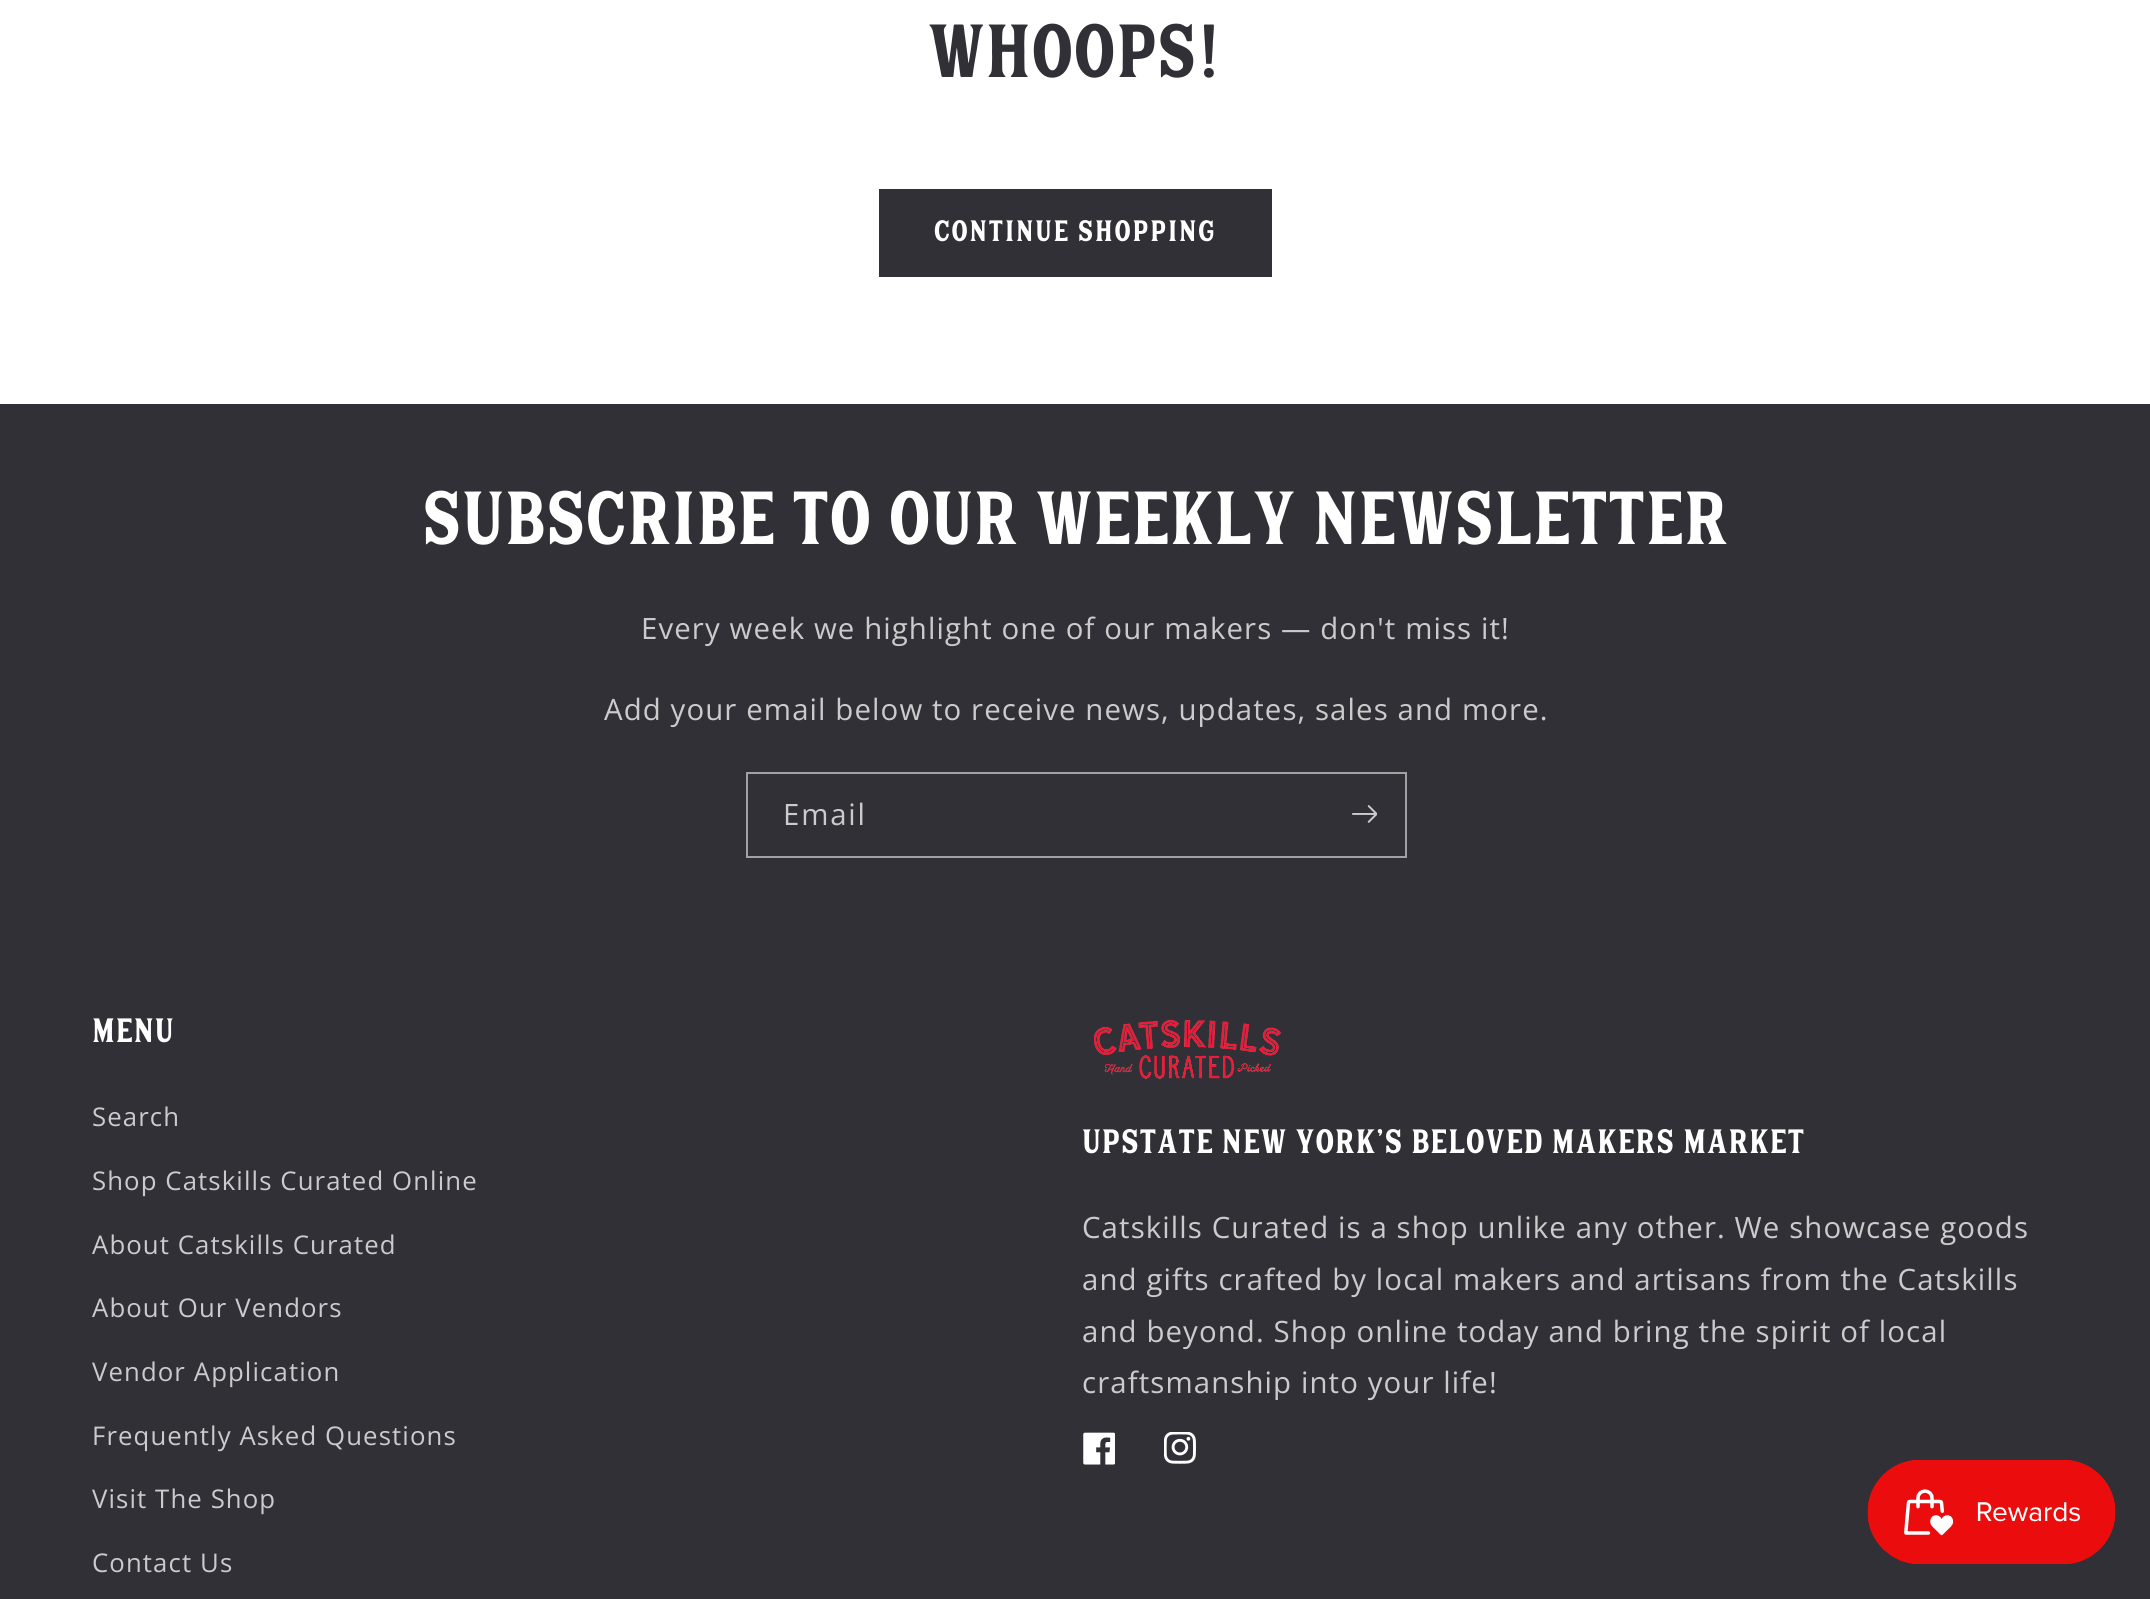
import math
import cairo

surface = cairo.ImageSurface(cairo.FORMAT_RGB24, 2150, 1599)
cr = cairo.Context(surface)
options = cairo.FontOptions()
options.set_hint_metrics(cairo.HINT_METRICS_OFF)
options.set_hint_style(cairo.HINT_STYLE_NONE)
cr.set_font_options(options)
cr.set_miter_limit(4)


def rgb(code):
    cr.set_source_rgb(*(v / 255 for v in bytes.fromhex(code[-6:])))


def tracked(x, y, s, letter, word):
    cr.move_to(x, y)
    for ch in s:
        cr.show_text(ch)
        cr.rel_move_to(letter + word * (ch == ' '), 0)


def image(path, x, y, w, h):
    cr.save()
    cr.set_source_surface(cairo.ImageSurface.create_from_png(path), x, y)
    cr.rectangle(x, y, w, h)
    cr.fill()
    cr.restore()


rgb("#ffffff")
cr.paint()
rgb("#303036")
cr.rectangle(879, 189, 393, 88)
cr.fill()
cr.rectangle(0, 404, 2150, 1195)
cr.fill()
cr.rectangle(747, 773, 659, 84)
rgb("#a2a2a5")
cr.stroke()
image("img/1.png", 1352, 805, 25, 18)
image("img/2.png", 1094, 1019, 187, 60)
image("img/3.png", 1083, 1432, 32, 33)
image("img/4.png", 1164, 1432, 32, 32)
image("img/5.png", 1867, 1459, 249, 106)
cr.select_font_face("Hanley")
cr.set_font_size(70)
rgb("#303036")
tracked(928, 77, "WHOOPS!", 1.05, 0)
cr.set_font_size(27.5)
rgb("#ffffff")
tracked(934, 241, "Continue shopping", 1.8, 0)
cr.set_font_size(70)
tracked(422, 544, "Subscribe to Our Weekly Newsletter", 1.05, 0)
cr.select_font_face("Open Sans")
cr.set_font_size(29.4)
rgb("#cbcbcd")
tracked(641, 639, "Every week we highlight one of our makers — don't miss it!", 1.1, 0)
tracked(604, 720, "Add your email below to receive news, updates, sales and more.", 1.1, 0)
tracked(783, 825, "Email", 1.8, 0)
cr.select_font_face("Hanley")
cr.set_font_size(31.5)
rgb("#ffffff")
tracked(92, 1042, "Menu", 1.05, 0)
cr.select_font_face("Open Sans")
cr.set_font_size(25.75)
rgb("#cbcbcd")
for x, y, s in [
    (92, 1126, "Search"),
    (92, 1190, "Shop Catskills Curated Online"),
    (92, 1254, "About Catskills Curated"),
    (92, 1317, "About Our Vendors"),
    (92, 1381, "Vendor Application"),
    (92, 1445, "Frequently Asked Questions"),
    (92, 1508, "Visit The Shop"),
    (92, 1572, "Contact Us"),
]:
    tracked(x, y, s, 1.1, 0)
cr.select_font_face("Hanley")
cr.set_font_size(31.5)
rgb("#ffffff")
tracked(1082, 1153, "Upstate New York’s Beloved Makers Market", 1.05, 0)
cr.select_font_face("Open Sans")
cr.set_font_size(29.4)
rgb("#cbcbcd")
for x, y, s in [
    (1082, 1238, "Catskills Curated is a shop unlike any other. We showcase goods"),
    (1082, 1290, "and gifts crafted by local makers and artisans from the Catskills"),
    (1082, 1342, "and beyond. Shop online today and bring the spirit of local"),
    (1082, 1393, "craftsmanship into your life!"),
]:
    tracked(x, y, s, 1.1, 0)
surface.write_to_png("page.png")
